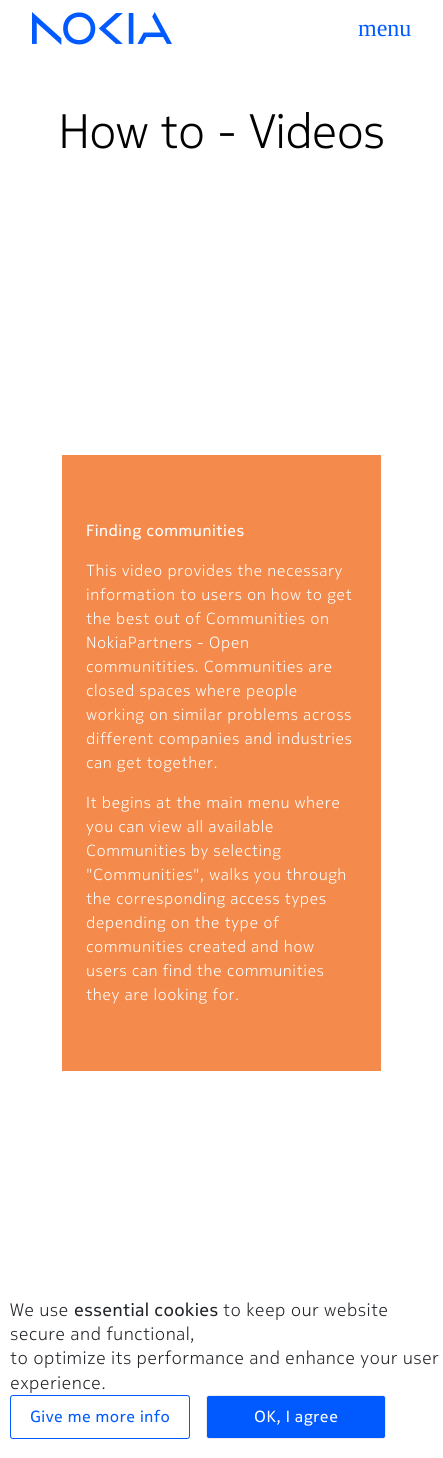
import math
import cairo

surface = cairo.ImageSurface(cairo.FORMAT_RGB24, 443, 1458)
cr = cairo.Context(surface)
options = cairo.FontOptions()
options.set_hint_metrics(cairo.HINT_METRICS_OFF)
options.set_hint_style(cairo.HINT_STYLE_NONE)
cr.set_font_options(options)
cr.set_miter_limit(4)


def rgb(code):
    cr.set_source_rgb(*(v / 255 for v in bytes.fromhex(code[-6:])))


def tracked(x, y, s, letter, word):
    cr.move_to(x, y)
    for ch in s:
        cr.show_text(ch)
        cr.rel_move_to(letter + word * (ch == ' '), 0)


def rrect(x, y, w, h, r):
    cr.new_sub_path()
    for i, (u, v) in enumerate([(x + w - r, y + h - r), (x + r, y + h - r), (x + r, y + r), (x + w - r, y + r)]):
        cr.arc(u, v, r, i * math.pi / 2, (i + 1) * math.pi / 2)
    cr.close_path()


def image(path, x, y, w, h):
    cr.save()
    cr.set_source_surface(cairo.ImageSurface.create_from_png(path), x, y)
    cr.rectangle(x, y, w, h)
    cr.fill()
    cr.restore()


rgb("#ffffff")
cr.paint()
image("img/1.png", 32, 12, 140, 33)
rgb("#f48b4c")
cr.rectangle(62, 455, 319, 616)
cr.fill()
rrect(10.5, 1395.5, 179, 43, 2.5)
rgb("#005aff")
cr.set_line_width(1)
cr.stroke()
rrect(206.5, 1395.5, 179, 43, 2.5)
cr.fill_preserve()
rgb("#ebebeb")
cr.stroke()
cr.select_font_face("Liberation Serif")
cr.set_font_size(24)
rgb("#005aff")
cr.move_to(358, 36)
cr.show_text("menu")
cr.select_font_face("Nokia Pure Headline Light")
cr.set_font_size(48)
rgb("#000000")
tracked(59, 148, "How to - Videos", 0.5, 0)
cr.select_font_face("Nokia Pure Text")
cr.set_font_size(16)
rgb("#ffffff")
tracked(86, 536, "Finding communities", 0.5, 0)
cr.select_font_face("Nokia Pure Text Light")
for x, y, s in [
    (86, 576, "This video provides the necessary"),
    (86, 600, "information to users on how to get"),
    (86, 624, "the best out of Communities on"),
    (86, 648, "NokiaPartners - Open"),
    (86, 672, "communitities. Communities are"),
    (86, 696, "closed spaces where people"),
    (86, 720, "working on similar problems across"),
    (86, 744, "different companies and industries"),
    (86, 768, "can get together."),
    (86, 808, "It begins at the main menu where"),
    (86, 832, "you can view all available"),
    (86, 856, "Communities by selecting"),
    (86, 880, "\"Communities\", walks you through"),
    (86, 904, "the corresponding access types"),
    (86, 928, "depending on the type of"),
    (86, 952, "communities created and how"),
    (86, 976, "users can find the communities"),
    (86, 1000, "they are looking for."),
]:
    tracked(x, y, s, 0.5, 0)
cr.set_font_size(18)
rgb("#212529")
tracked(10, 1316, "We use", 0.35, 0)
cr.select_font_face("Nokia Pure Text")
tracked(74, 1316, "essential cookies", 0.35, 0)
cr.select_font_face("Nokia Pure Text Light")
for x, y, s in [
    (223, 1316, "to keep our website"),
    (10, 1340, "secure and functional,"),
    (10, 1364, "to optimize its performance and enhance your user"),
    (10, 1389, "experience."),
]:
    tracked(x, y, s, 0.35, 0)
cr.select_font_face("Nokia Pure Text")
cr.set_font_size(16)
rgb("#005aff")
tracked(30, 1422, "Give me more info", 0.5, 0)
rgb("#ffffff")
tracked(254, 1422, "OK, I agree", 0.5, 0)
surface.write_to_png("page.png")
